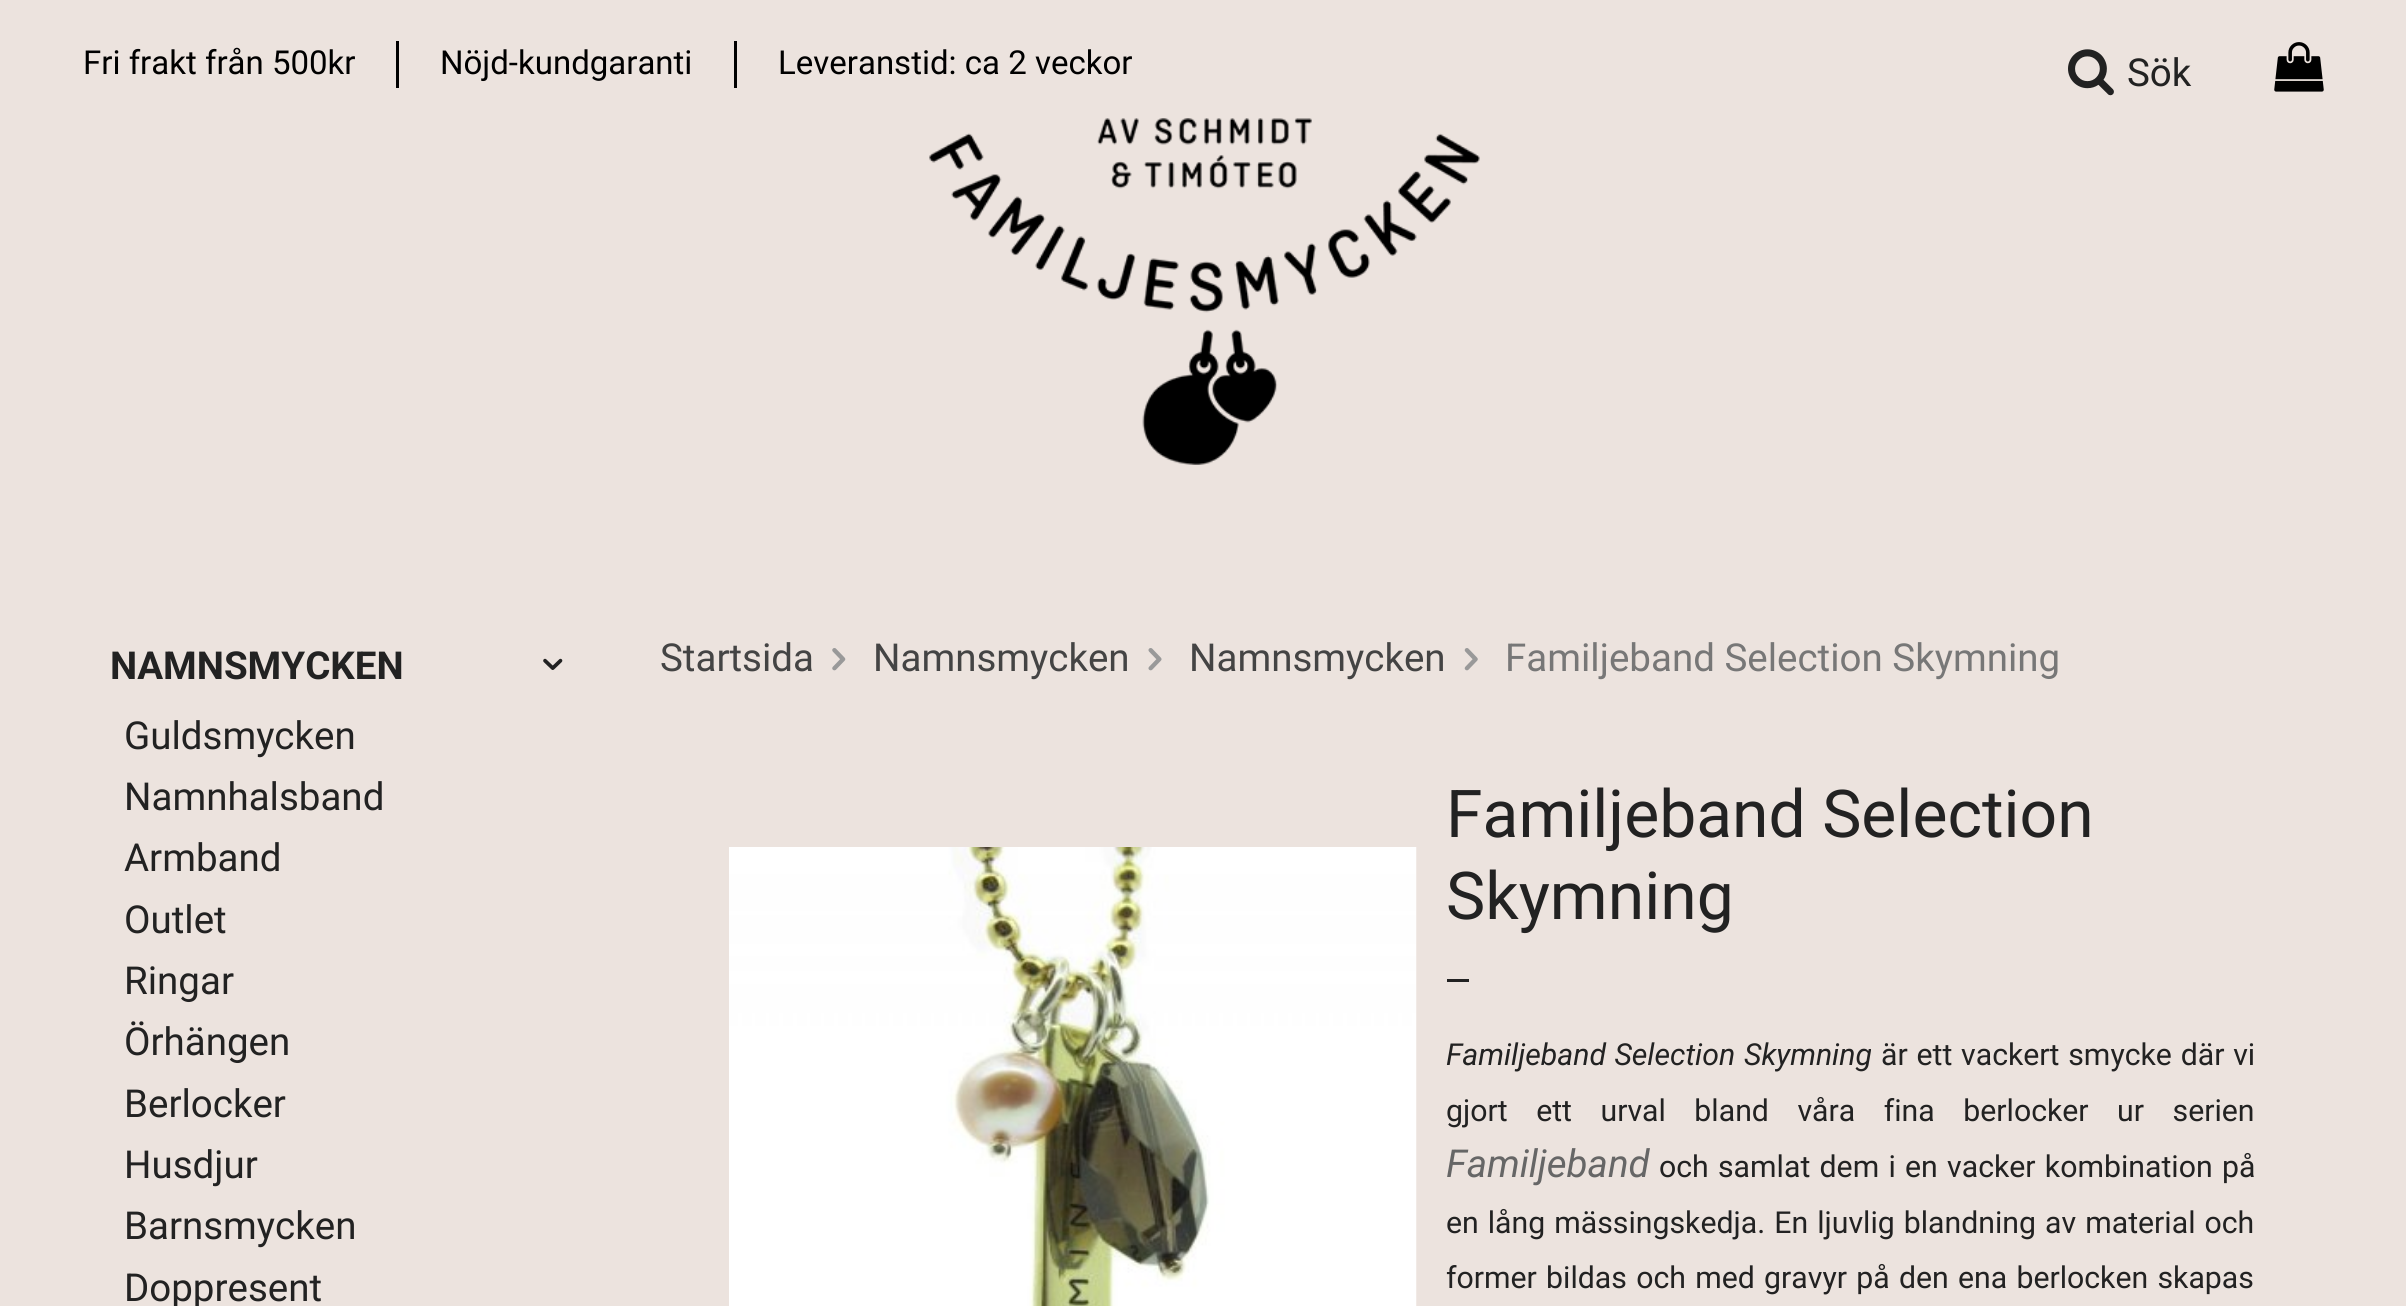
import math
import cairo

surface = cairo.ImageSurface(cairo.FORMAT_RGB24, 2406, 1306)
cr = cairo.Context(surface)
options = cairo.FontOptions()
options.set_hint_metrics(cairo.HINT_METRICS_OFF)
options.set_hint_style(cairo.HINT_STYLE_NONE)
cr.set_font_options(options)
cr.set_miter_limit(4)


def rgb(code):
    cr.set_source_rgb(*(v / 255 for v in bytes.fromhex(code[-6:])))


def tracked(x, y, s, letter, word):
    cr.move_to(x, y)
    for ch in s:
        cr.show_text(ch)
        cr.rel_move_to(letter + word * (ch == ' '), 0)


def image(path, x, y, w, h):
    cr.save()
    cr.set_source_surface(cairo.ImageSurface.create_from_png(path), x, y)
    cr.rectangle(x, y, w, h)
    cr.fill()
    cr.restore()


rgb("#ece3de")
cr.paint()
rgb("#000000")
cr.rectangle(396, 41, 3, 47)
cr.fill()
cr.rectangle(734, 41, 3, 47)
cr.fill()
image("img/1.png", 2068, 49, 46, 47)
image("img/2.png", 2274, 42, 50, 50)
image("img/3.png", 929, 118, 551, 347)
image("img/4.png", 543, 658, 20, 12)
image("img/5.png", 832, 648, 14, 23)
image("img/6.png", 1148, 648, 14, 23)
image("img/7.png", 1464, 648, 14, 23)
image("img/8.png", 729, 847, 688, 459)
rgb("#222222")
cr.rectangle(1447, 979, 22, 3)
cr.fill()
cr.select_font_face("Roboto")
cr.set_font_size(33)
rgb("#000000")
for x, y, s in [
    (83, 74, "Fri frakt från 500kr"),
    (440, 74, "Nöjd-kundgaranti"),
    (778, 74, "Leveranstid: ca 2 veckor"),
]:
    cr.move_to(x, y)
    cr.show_text(s)
cr.set_font_size(38.5)
rgb("#222222")
cr.move_to(2127, 86)
cr.show_text("Sök")
cr.select_font_face("Roboto", cairo.FONT_SLANT_NORMAL, cairo.FONT_WEIGHT_BOLD)
cr.move_to(110, 679)
cr.show_text("NAMNSMYCKEN")
cr.select_font_face("Roboto")
for x, y, s in [
    (124, 749, "Guldsmycken"),
    (124, 810, "Namnhalsband"),
    (124, 871, "Armband"),
    (124, 933, "Outlet"),
    (124, 994, "Ringar"),
    (124, 1055, "Örhängen"),
    (124, 1117, "Berlocker"),
    (124, 1178, "Husdjur"),
    (124, 1239, "Barnsmycken"),
    (124, 1301, "Doppresent"),
]:
    cr.move_to(x, y)
    cr.show_text(s)
rgb("#444444")
for x, y, s in [
    (660, 671, "Startsida"),
    (873, 671, "Namnsmycken"),
    (1189, 671, "Namnsmycken"),
]:
    cr.move_to(x, y)
    cr.show_text(s)
rgb("#777777")
cr.move_to(1505, 671)
cr.show_text("Familjeband Selection Skymning")
cr.set_font_size(66)
rgb("#222222")
cr.move_to(1446, 837)
cr.show_text("Familjeband Selection")
cr.move_to(1446, 919)
cr.show_text("Skymning")
cr.select_font_face("Roboto", cairo.FONT_SLANT_ITALIC)
cr.set_font_size(30.25)
tracked(1446, 1065, "Familjeband Selection", 0, 1)
cr.move_to(1744, 1065)
cr.show_text("Skymning")
cr.select_font_face("Roboto")
tracked(1881, 1065, "är ett vackert smycke där vi", 0, 1.25)
tracked(1446, 1121, "gjort ett urval bland våra fina berlocker ur serien", 0, 21)
cr.select_font_face("Roboto", cairo.FONT_SLANT_ITALIC)
cr.set_font_size(38.5)
rgb("#666666")
cr.move_to(1446, 1177)
cr.show_text("Familjeband")
cr.select_font_face("Roboto")
cr.set_font_size(30.25)
rgb("#222222")
tracked(1659, 1177, "och samlat dem i en vacker kombination på", 0, 1.75)
tracked(1446, 1233, "en lång mässingskedja. En ljuvlig blandning av material och", 0, 1.5)
tracked(1446, 1288, "former bildas och med gravyr på den ena berlocken skapas", 0, 1.75)
surface.write_to_png("page.png")
